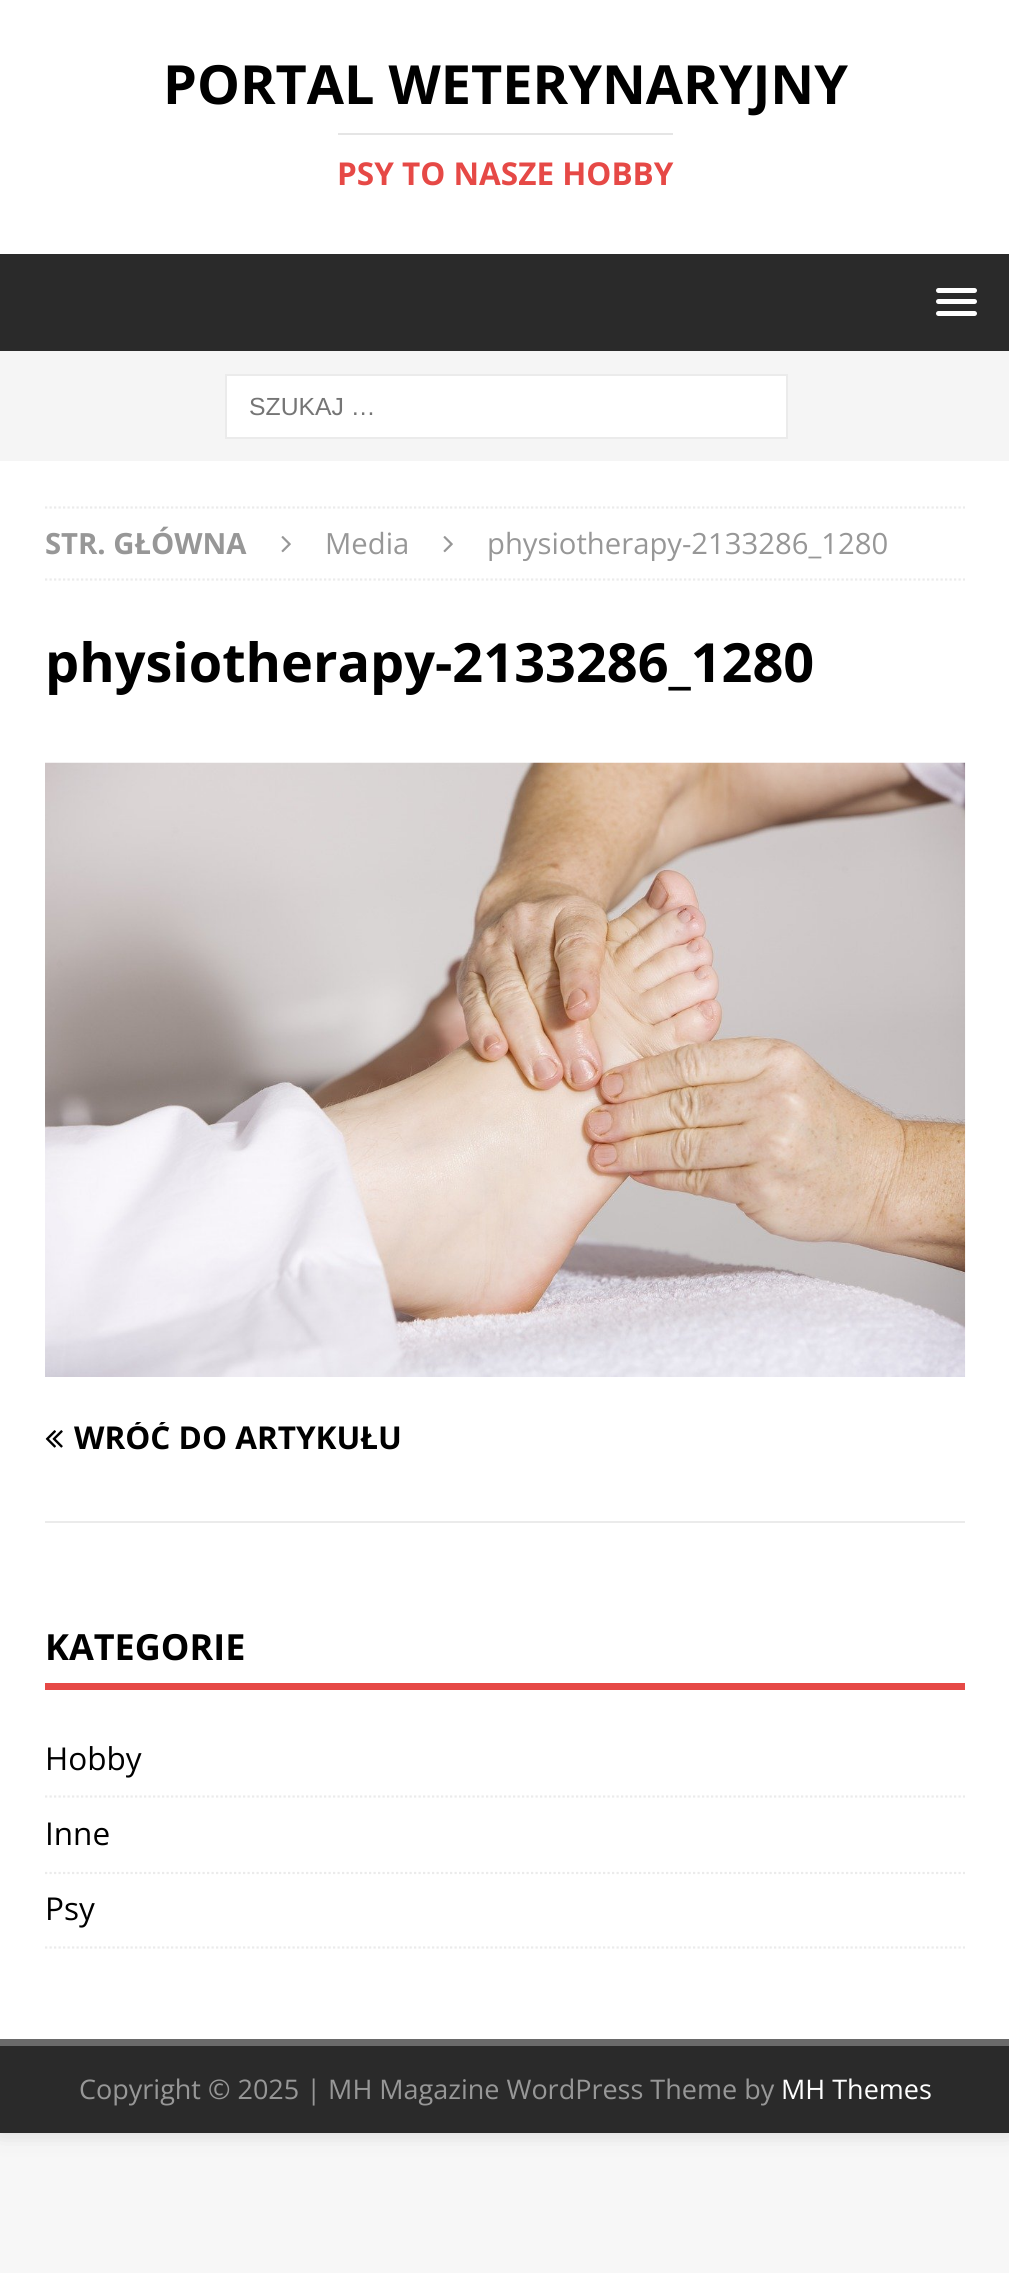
import math
import cairo

surface = cairo.ImageSurface(cairo.FORMAT_RGB24, 1009, 2273)
cr = cairo.Context(surface)
options = cairo.FontOptions()
options.set_hint_metrics(cairo.HINT_METRICS_OFF)
options.set_hint_style(cairo.HINT_STYLE_NONE)
cr.set_font_options(options)
cr.set_miter_limit(4)


def rgb(code):
    cr.set_source_rgb(*(v / 255 for v in bytes.fromhex(code[-6:])))


def rrect(x, y, w, h, r):
    cr.new_sub_path()
    for i, (u, v) in enumerate([(x + w - r, y + h - r), (x + r, y + h - r), (x + r, y + r), (x + w - r, y + r)]):
        cr.arc(u, v, r, i * math.pi / 2, (i + 1) * math.pi / 2)
    cr.close_path()


def soft_shadow(x, y, w, h, r, blur, alpha):
    cr.push_group_with_content(cairo.CONTENT_ALPHA)
    cr.set_operator(cairo.OPERATOR_SOURCE)
    for i in range(15, -16, -2):
        e = blur * i / 6
        if min(w, h) + 2 * e > 0:
            cr.set_source_rgba(0, 0, 0, alpha * math.erfc((i - 1) / 8.5) / 2)
            rrect(x - e, y - e, w + 2 * e, h + 2 * e, max(0, min(r + e + blur * .6, min(w, h) / 2 + e)))
            cr.fill()
    cr.mask(cr.pop_group())


def image(path, x, y, w, h):
    cr.save()
    cr.set_source_surface(cairo.ImageSurface.create_from_png(path), x, y)
    cr.rectangle(x, y, w, h)
    cr.fill()
    cr.restore()


rgb("#f7f7f7")
cr.paint()
rgb("#323232")
soft_shadow(0, 0, 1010, 2133, 0, 11, 0.17)
for x, y, w, h, color in [
    (0, 0, 1009, 254, "#ffffff"),
    (338, 133, 335, 2, "#e5e5e5"),
    (0, 254, 1009, 97, "#2a2a2a"),
]:
    rgb(color)
    cr.rectangle(x, y, w, h)
    cr.fill()
rgb("#ffffff")
rrect(936, 288, 41, 5, 2.5)
cr.fill()
rrect(936, 299, 41, 5, 2.5)
cr.fill()
rrect(936, 311, 41, 5, 2.5)
cr.fill()
rgb("#f5f5f5")
cr.rectangle(0, 351, 1009, 110)
cr.fill()
rgb("#ffffff")
cr.rectangle(226, 375, 561, 63)
cr.fill_preserve()
rgb("#ebebeb")
cr.stroke()
rgb("#ffffff")
cr.rectangle(0, 461, 1009, 1578)
cr.fill()
cr.new_path()
cr.move_to(45, 507.5)
cr.line_to(965, 507.5)
rgb("#ebebeb")
cr.set_line_width(2.2)
cr.set_dash([2.25, 2.25])
cr.stroke()
cr.new_path()
cr.move_to(45, 579.5)
cr.line_to(965, 579.5)
cr.stroke()
image("img/1.png", 281, 536, 10, 17)
image("img/1.png", 443, 536, 10, 17)
image("img/2.png", 45, 762, 921, 615)
cr.rectangle(45, 1521, 920, 2)
cr.fill()
image("img/3.png", 45, 1430, 18, 18)
rgb("#e64946")
cr.rectangle(45, 1683, 920, 7)
cr.fill()
cr.new_path()
cr.move_to(45, 1796.5)
cr.line_to(965, 1796.5)
rgb("#ebebeb")
cr.stroke()
cr.new_path()
cr.move_to(45, 1873)
cr.line_to(965, 1873)
cr.stroke()
cr.new_path()
cr.move_to(45, 1947.5)
cr.line_to(965, 1947.5)
cr.stroke()
rgb("#2a2a2a")
cr.rectangle(0, 2046, 1009, 87)
cr.fill()
rgb("#6a6a6a")
cr.rectangle(0, 2039, 1009, 7)
cr.fill()
cr.select_font_face("Open Sans", cairo.FONT_SLANT_NORMAL, cairo.FONT_WEIGHT_BOLD)
cr.set_font_size(54)
rgb("#000000")
cr.move_to(163, 104)
cr.show_text("PORTAL WETERYNARYJNY")
cr.set_font_size(31.5)
rgb("#e64946")
cr.move_to(337, 185)
cr.show_text("PSY TO NASZE HOBBY")
cr.select_font_face("Liberation Sans")
cr.set_font_size(24.75)
rgb("#757575")
cr.move_to(249, 415)
cr.show_text("SZUKAJ …")
cr.select_font_face("Open Sans", cairo.FONT_SLANT_NORMAL, cairo.FONT_WEIGHT_BOLD)
cr.set_font_size(29.25)
rgb("#979797")
cr.move_to(45, 554)
cr.show_text("STR. GŁÓWNA")
cr.select_font_face("Open Sans")
cr.move_to(325, 554)
cr.show_text("Media")
cr.move_to(487, 554)
cr.show_text("physiotherapy-2133286_1280")
cr.select_font_face("Open Sans", cairo.FONT_SLANT_NORMAL, cairo.FONT_WEIGHT_BOLD)
cr.set_font_size(54)
rgb("#000000")
cr.move_to(45, 682)
cr.show_text("physiotherapy-2133286_1280")
cr.save()
cr.rectangle(45, 1422, 920, 32)
cr.clip()
cr.set_font_size(31.5)
cr.move_to(74, 1449)
cr.show_text("WRÓĆ DO ARTYKUŁU")
cr.restore()
cr.set_font_size(36)
cr.move_to(45, 1660)
cr.show_text("KATEGORIE")
cr.select_font_face("Open Sans")
cr.set_font_size(31.5)
for x, y, s in [
    (45, 1770, "Hobby"),
    (45, 1845, "Inne"),
    (45, 1920, "Psy"),
]:
    cr.move_to(x, y)
    cr.show_text(s)
cr.set_font_size(27)
rgb("#979797")
cr.move_to(79, 2099)
cr.show_text("Copyright © 2025 | MH Magazine WordPress Theme by")
rgb("#ffffff")
cr.move_to(781, 2099)
cr.show_text("MH Themes")
surface.write_to_png("page.png")
